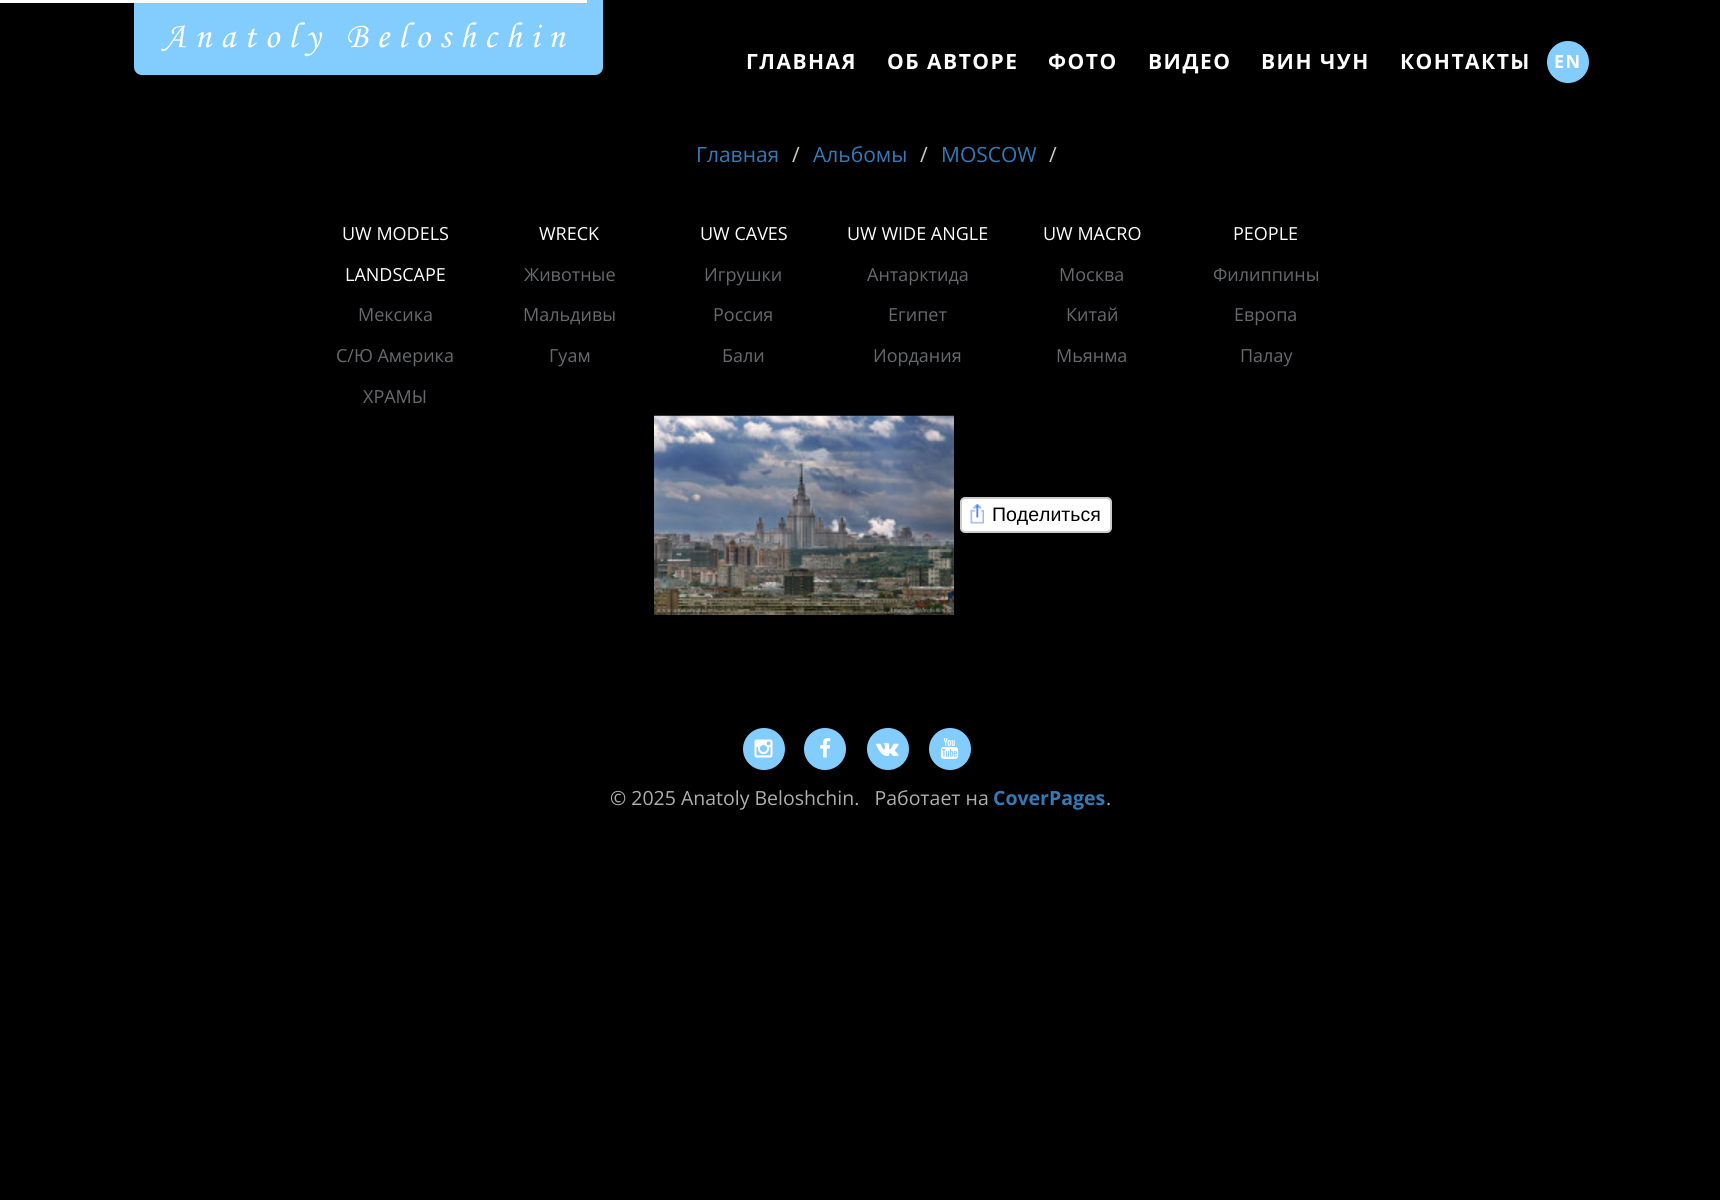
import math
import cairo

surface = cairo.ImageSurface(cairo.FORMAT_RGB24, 1720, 1200)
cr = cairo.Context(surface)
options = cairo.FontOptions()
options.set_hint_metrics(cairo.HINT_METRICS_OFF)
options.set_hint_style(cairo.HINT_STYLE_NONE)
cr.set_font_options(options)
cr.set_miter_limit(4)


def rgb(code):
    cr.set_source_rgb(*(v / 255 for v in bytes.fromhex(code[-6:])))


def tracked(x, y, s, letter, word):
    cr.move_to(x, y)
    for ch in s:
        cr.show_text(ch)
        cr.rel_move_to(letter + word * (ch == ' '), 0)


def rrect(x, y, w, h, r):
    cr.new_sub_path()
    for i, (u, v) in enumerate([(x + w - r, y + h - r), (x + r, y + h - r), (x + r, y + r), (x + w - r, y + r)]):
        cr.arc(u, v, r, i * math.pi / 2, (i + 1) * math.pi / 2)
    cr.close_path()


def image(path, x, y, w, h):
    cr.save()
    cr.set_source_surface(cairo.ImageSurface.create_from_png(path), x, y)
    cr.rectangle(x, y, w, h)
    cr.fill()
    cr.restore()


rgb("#000000")
cr.paint()
rgb("#83cdfe")
cr.new_path()
cr.move_to(134, 0)
cr.line_to(603, 0)
cr.line_to(603, 67)
cr.curve_to(603, 71.5, 599.5, 75, 595, 75)
cr.line_to(142, 75)
cr.curve_to(137.5, 75, 134, 71.5, 134, 67)
cr.close_path()
cr.fill()
rgb("#ffffff")
cr.rectangle(0, 0, 587, 3)
cr.fill()
rgb("#83cdfe")
cr.arc(1568, 62, 21, 0, 2 * math.pi)
cr.fill()
image("img/1.png", 654, 415, 300, 200)
rgb("#ffffff")
rrect(961, 498, 150, 34, 4)
cr.fill_preserve()
rgb("#cccccc")
cr.stroke()
image("img/2.png", 970, 504, 14, 20)
rgb("#83cdfe")
cr.arc(764, 749, 21, 0, 2 * math.pi)
cr.fill()
image("img/3.png", 754, 739, 19, 19)
cr.arc(825, 749, 21, 0, 2 * math.pi)
cr.fill()
image("img/4.png", 820, 738, 11, 20)
cr.arc(888, 749, 21, 0, 2 * math.pi)
cr.fill()
image("img/5.png", 876, 743, 23, 13)
cr.arc(950, 749, 21, 0, 2 * math.pi)
cr.fill()
image("img/6.png", 940, 738, 19, 21)
cr.select_font_face("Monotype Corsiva", cairo.FONT_SLANT_ITALIC)
cr.set_font_size(36)
rgb("#ffffff")
tracked(163, 47, "Anatoly Beloshchin", 9, 0)
cr.select_font_face("Open Sans", cairo.FONT_SLANT_NORMAL, cairo.FONT_WEIGHT_BOLD)
cr.set_font_size(21)
for x, y, s in [
    (746, 69, "ГЛАВНАЯ"),
    (887, 69, "ОБ АВТОРЕ"),
    (1048, 69, "ФОТО"),
    (1148, 69, "ВИДЕО"),
    (1261, 69, "ВИН ЧУН"),
    (1400, 69, "КОНТАКТЫ"),
]:
    tracked(x, y, s, 1.5, 0)
cr.set_font_size(18)
tracked(1554, 68, "EN", 1.5, 0)
cr.select_font_face("Open Sans")
cr.set_font_size(21)
rgb("#337ab7")
cr.move_to(696, 162)
cr.show_text("Главная")
rgb("#cccccc")
cr.move_to(792, 162)
cr.show_text("/")
rgb("#337ab7")
cr.move_to(813, 162)
cr.show_text("Альбомы")
rgb("#cccccc")
cr.move_to(920, 162)
cr.show_text("/")
rgb("#337ab7")
cr.move_to(941, 162)
cr.show_text("MOSCOW")
rgb("#cccccc")
cr.move_to(1049, 162)
cr.show_text("/")
cr.set_font_size(18)
rgb("#ffffff")
for x, y, s in [
    (342, 240, "UW MODELS"),
    (539, 240, "WRECK"),
    (700, 240, "UW CAVES"),
    (847, 240, "UW WIDE ANGLE"),
    (1043, 240, "UW MACRO"),
    (1233, 240, "PEOPLE"),
    (345, 281, "LANDSCAPE"),
]:
    cr.move_to(x, y)
    cr.show_text(s)
rgb("#676a6c")
for x, y, s in [
    (524, 281, "Животные"),
    (704, 281, "Игрушки"),
    (867, 281, "Антарктида"),
    (1059, 281, "Москва"),
    (1213, 281, "Филиппины"),
    (358, 321, "Мексика"),
    (523, 321, "Мальдивы"),
    (713, 321, "Россия"),
    (888, 321, "Египет"),
    (1066, 321, "Китай"),
    (1234, 321, "Европа"),
    (336, 362, "С/Ю Америка"),
    (549, 362, "Гуам"),
    (722, 362, "Бали"),
    (873, 362, "Иордания"),
    (1056, 362, "Мьянма"),
    (1240, 362, "Палау"),
    (363, 403, "ХРАМЫ"),
]:
    cr.move_to(x, y)
    cr.show_text(s)
cr.select_font_face("Liberation Sans")
cr.set_font_size(19.5)
rgb("#000000")
cr.move_to(992, 521)
cr.show_text("Поделиться")
cr.select_font_face("Open Sans")
rgb("#aeaeae")
cr.move_to(610, 805)
cr.show_text("© 2025 Anatoly Beloshchin.   Работает на")
cr.select_font_face("Open Sans", cairo.FONT_SLANT_NORMAL, cairo.FONT_WEIGHT_BOLD)
rgb("#337ab7")
cr.move_to(993, 805)
cr.show_text("CoverPages")
cr.select_font_face("Open Sans")
rgb("#aeaeae")
cr.move_to(1106, 805)
cr.show_text(".")
surface.write_to_png("page.png")
